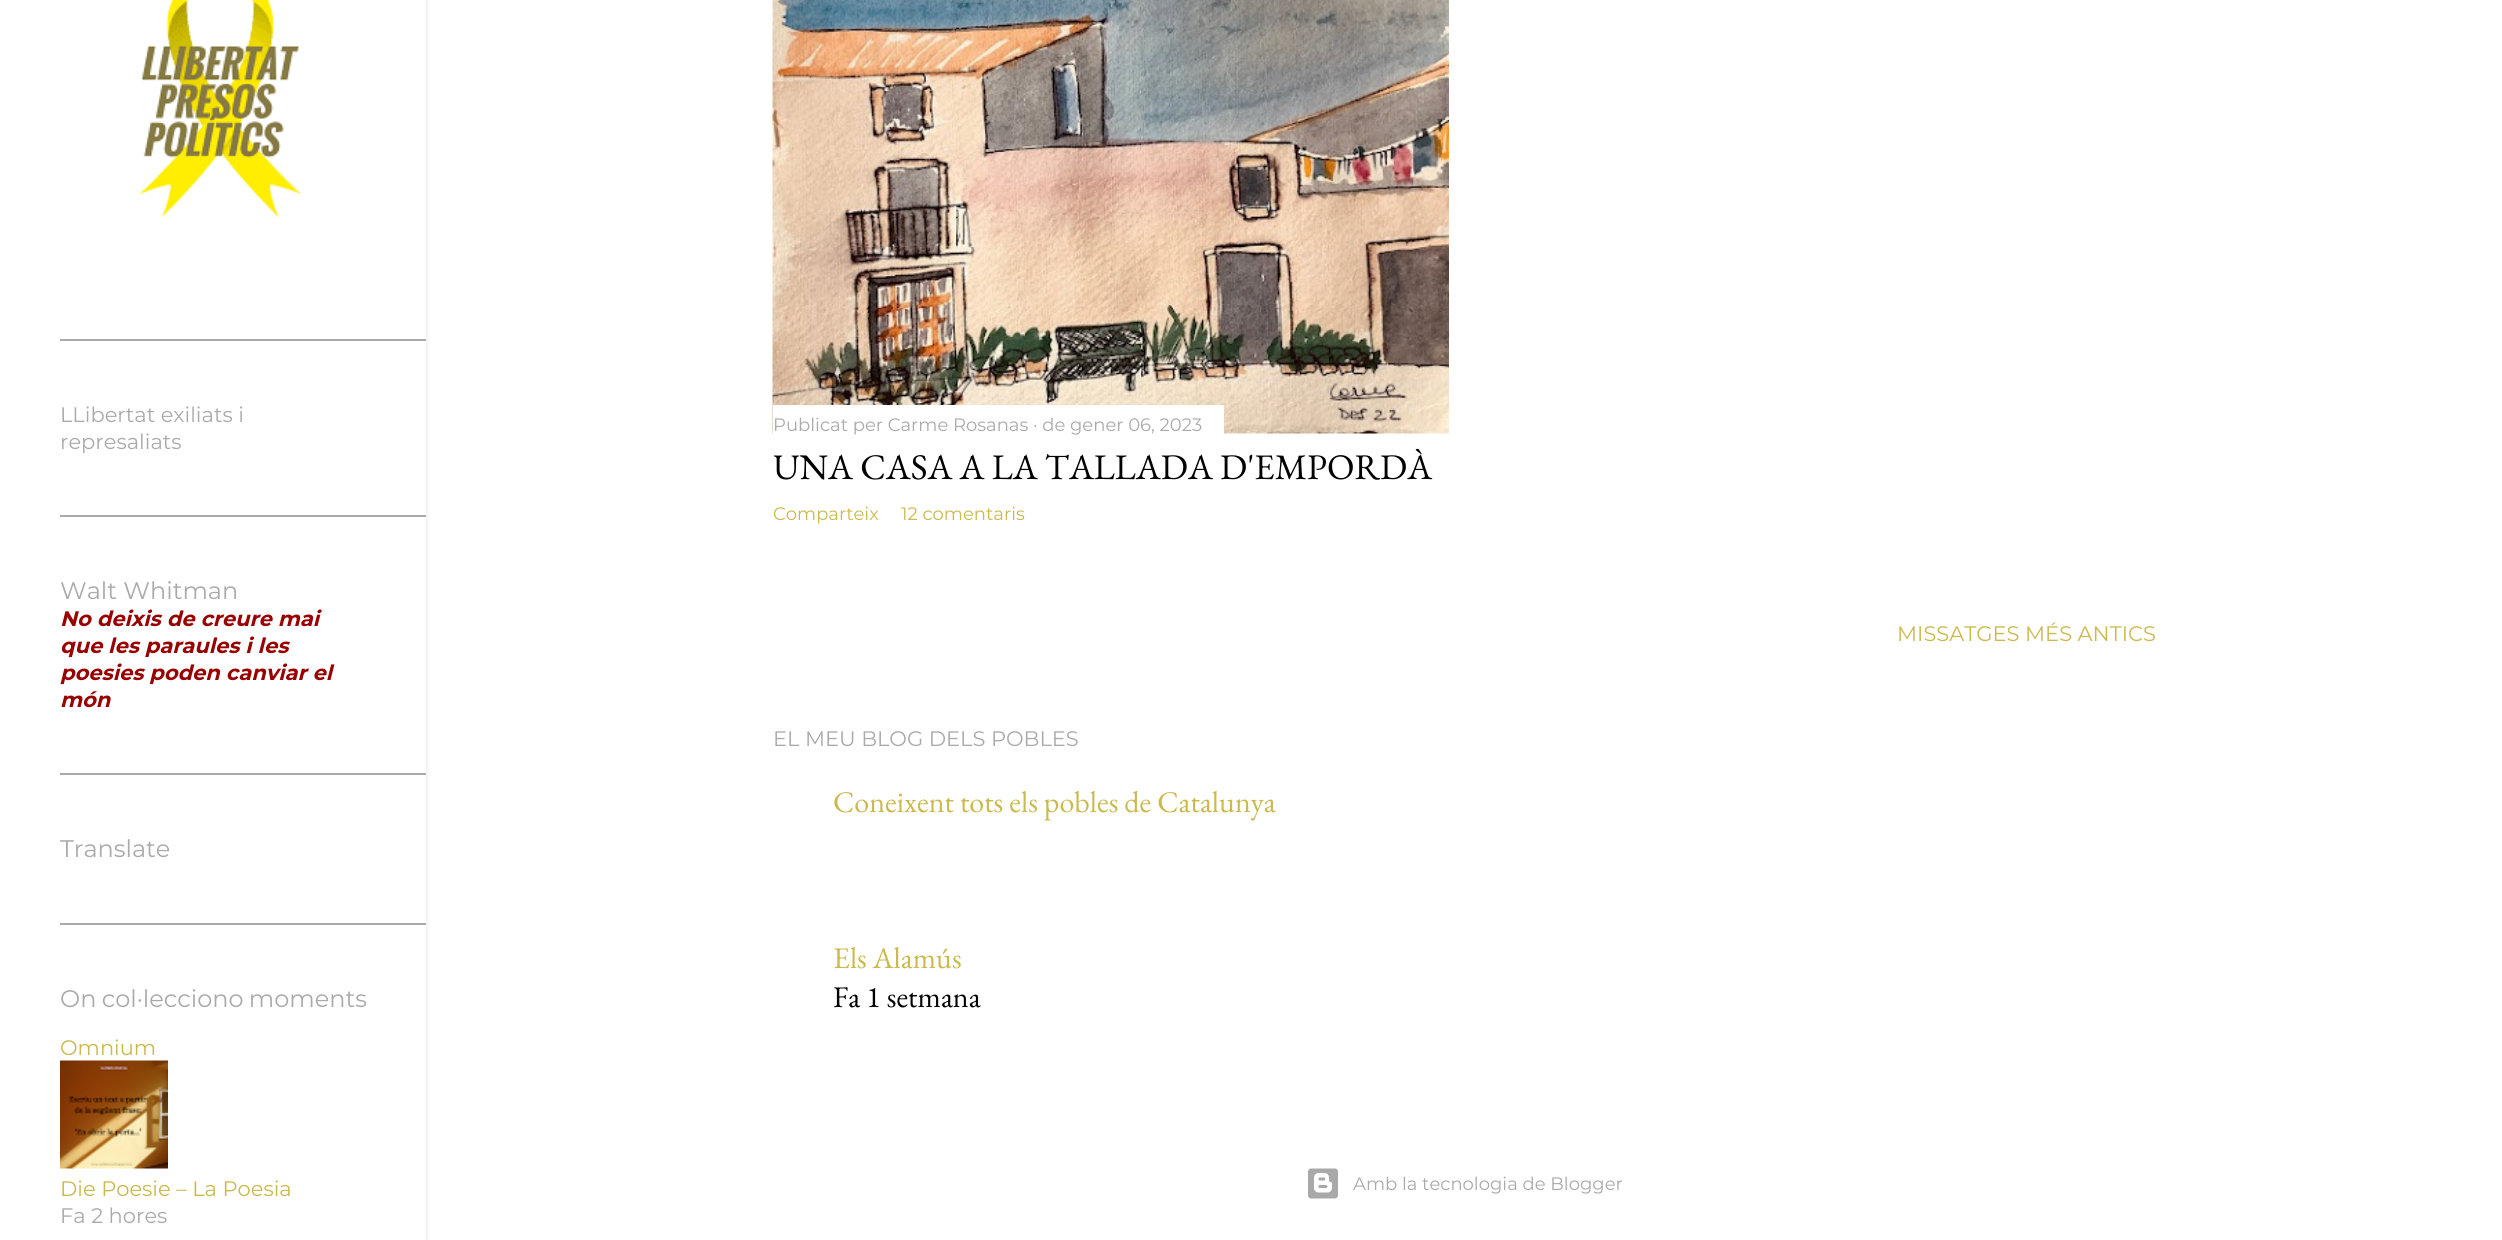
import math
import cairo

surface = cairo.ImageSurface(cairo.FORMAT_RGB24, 2502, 1240)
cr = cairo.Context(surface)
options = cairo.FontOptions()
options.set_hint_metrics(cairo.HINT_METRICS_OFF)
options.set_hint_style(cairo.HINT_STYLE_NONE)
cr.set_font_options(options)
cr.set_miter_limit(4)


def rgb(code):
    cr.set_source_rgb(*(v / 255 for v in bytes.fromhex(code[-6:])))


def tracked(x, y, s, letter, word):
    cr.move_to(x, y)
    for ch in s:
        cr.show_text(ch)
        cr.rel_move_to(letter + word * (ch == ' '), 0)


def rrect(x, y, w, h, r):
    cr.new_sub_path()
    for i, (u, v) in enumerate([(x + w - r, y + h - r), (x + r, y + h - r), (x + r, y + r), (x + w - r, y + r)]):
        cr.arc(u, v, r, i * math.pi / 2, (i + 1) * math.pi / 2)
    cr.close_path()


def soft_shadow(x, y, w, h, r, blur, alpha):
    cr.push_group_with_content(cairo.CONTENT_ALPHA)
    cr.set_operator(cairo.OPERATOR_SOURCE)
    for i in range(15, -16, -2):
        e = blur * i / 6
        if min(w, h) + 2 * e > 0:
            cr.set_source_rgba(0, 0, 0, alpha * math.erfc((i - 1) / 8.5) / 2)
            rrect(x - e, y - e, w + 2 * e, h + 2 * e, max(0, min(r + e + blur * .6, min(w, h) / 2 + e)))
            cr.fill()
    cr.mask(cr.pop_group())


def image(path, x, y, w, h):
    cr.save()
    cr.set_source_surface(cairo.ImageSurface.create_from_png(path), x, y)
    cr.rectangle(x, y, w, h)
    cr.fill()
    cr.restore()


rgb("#ffffff")
cr.paint()
cr.save()
cr.rectangle(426, 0, 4, 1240)
cr.clip()
rgb("#616161")
soft_shadow(2, -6, 426, 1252, 0, 2, 0.1)
cr.restore()
image("img/1.png", 138, 0, 164, 218)
for x, y, w, h, color in [
    (60, 339, 366, 2, "#aaaaaa"),
    (60, 515, 366, 2, "#aaaaaa"),
    (60, 773, 366, 2, "#aaaaaa"),
    (60, 923, 366, 2, "#aaaaaa"),
]:
    rgb(color)
    cr.rectangle(x, y, w, h)
    cr.fill()
image("img/2.png", 60, 1060, 108, 109)
image("img/3.png", 772, 0, 677, 434)
rgb("#ffffff")
cr.rectangle(773, 405, 451, 29)
cr.fill()
image("img/4.png", 1308, 1168, 30, 31)
cr.select_font_face("Montserrat")
cr.set_font_size(21)
rgb("#aaaaaa")
cr.move_to(60, 422)
cr.show_text("LLibertat exiliats i")
cr.move_to(60, 449)
cr.show_text("represaliats")
cr.set_font_size(24)
cr.move_to(60, 599)
cr.show_text("Walt Whitman")
cr.select_font_face("Montserrat", cairo.FONT_SLANT_ITALIC, cairo.FONT_WEIGHT_BOLD)
cr.set_font_size(21)
rgb("#990000")
for x, y, s in [
    (60, 626, "No deixis de creure mai"),
    (60, 653, "que les paraules i les"),
    (60, 680, "poesies poden canviar el"),
    (60, 707, "món"),
]:
    cr.move_to(x, y)
    cr.show_text(s)
cr.select_font_face("Montserrat")
cr.set_font_size(24)
rgb("#aaaaaa")
cr.move_to(60, 857)
cr.show_text("Translate")
tracked(60, 1007, "On col·lecciono moments", 0, -1)
cr.set_font_size(21)
rgb("#cbb94e")
cr.move_to(60, 1055)
cr.show_text("Omnium")
cr.move_to(60, 1196)
cr.show_text("Die Poesie – La Poesia")
rgb("#aaaaaa")
cr.move_to(60, 1223)
cr.show_text("Fa 2 hores")
cr.set_font_size(18)
cr.move_to(773, 431)
cr.show_text("Publicat per Carme Rosanas · de gener 06, 2023")
cr.select_font_face("EB Garamond")
cr.set_font_size(36)
rgb("#000000")
cr.move_to(773, 479)
cr.show_text("UNA CASA A LA TALLADA D'EMPORDÀ")
cr.select_font_face("Montserrat")
cr.set_font_size(18)
rgb("#cbb94e")
cr.move_to(773, 520)
cr.show_text("Comparteix")
cr.move_to(901, 520)
cr.show_text("12 comentaris")
cr.set_font_size(21)
cr.move_to(1897, 641)
cr.show_text("MISSATGES MÉS ANTICS")
rgb("#aaaaaa")
cr.move_to(773, 746)
cr.show_text("EL MEU BLOG DELS POBLES")
cr.select_font_face("EB Garamond")
cr.set_font_size(30)
rgb("#cbb94e")
cr.move_to(833, 812)
cr.show_text("Coneixent tots els pobles de Catalunya")
cr.move_to(833, 968)
cr.show_text("Els Alamús")
rgb("#000000")
cr.move_to(833, 1007)
cr.show_text("Fa 1 setmana")
cr.select_font_face("Montserrat")
cr.set_font_size(18)
rgb("#aaaaaa")
cr.move_to(1353, 1190)
cr.show_text("Amb la tecnologia de Blogger")
surface.write_to_png("page.png")
